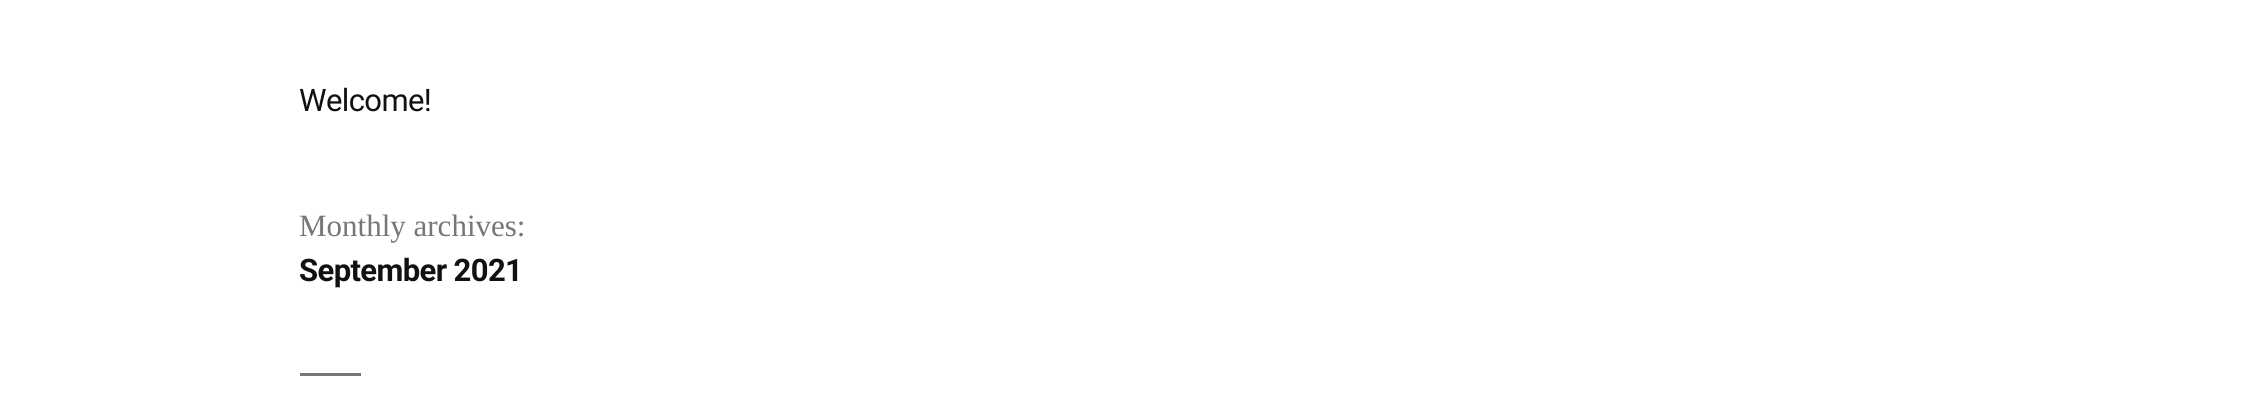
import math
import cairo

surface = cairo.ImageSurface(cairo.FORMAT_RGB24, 2243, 414)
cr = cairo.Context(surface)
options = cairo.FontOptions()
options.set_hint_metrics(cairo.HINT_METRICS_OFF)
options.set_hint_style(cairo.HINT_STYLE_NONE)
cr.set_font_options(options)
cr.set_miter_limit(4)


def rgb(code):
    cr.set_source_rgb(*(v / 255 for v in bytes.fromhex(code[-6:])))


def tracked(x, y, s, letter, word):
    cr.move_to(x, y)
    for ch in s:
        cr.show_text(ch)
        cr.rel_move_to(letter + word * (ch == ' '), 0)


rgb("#ffffff")
cr.paint()
rgb("#767676")
cr.rectangle(300, 373, 61, 3)
cr.fill()
cr.select_font_face("Roboto")
cr.set_font_size(31)
rgb("#111111")
tracked(299, 111, "Welcome!", -0.6, 0)
cr.select_font_face("Liberation Serif")
rgb("#767676")
cr.move_to(299, 236)
cr.show_text("Monthly archives:")
cr.select_font_face("Roboto", cairo.FONT_SLANT_NORMAL, cairo.FONT_WEIGHT_BOLD)
rgb("#111111")
tracked(299, 281, "September 2021", -0.6, 0)
surface.write_to_png("page.png")
